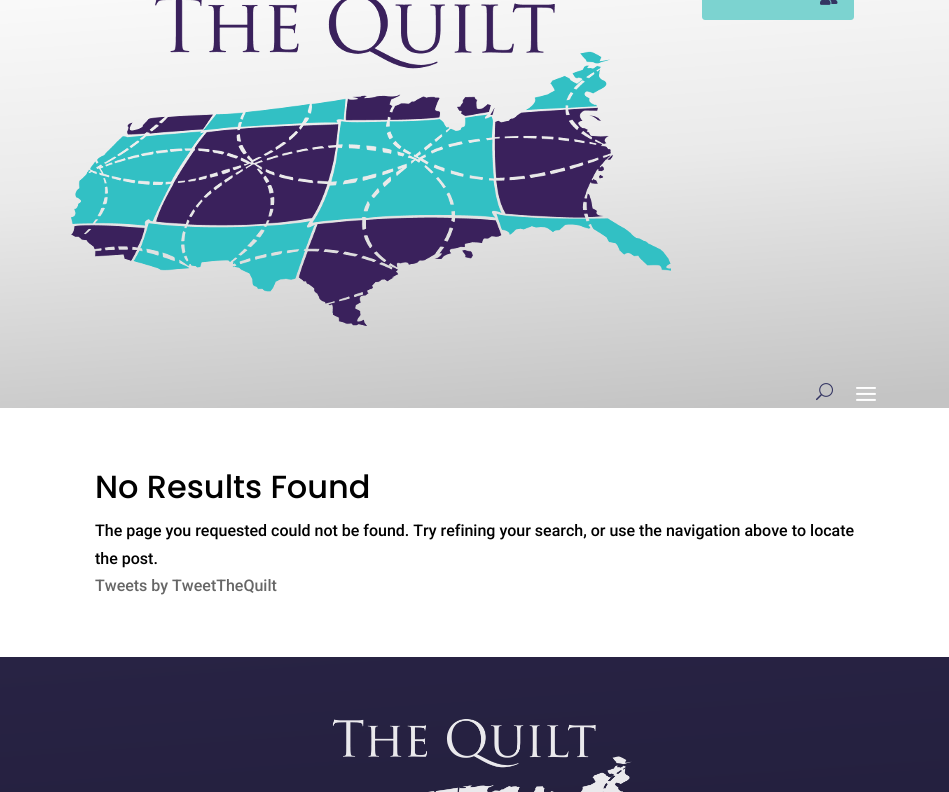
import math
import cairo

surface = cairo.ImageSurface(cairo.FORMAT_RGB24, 949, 792)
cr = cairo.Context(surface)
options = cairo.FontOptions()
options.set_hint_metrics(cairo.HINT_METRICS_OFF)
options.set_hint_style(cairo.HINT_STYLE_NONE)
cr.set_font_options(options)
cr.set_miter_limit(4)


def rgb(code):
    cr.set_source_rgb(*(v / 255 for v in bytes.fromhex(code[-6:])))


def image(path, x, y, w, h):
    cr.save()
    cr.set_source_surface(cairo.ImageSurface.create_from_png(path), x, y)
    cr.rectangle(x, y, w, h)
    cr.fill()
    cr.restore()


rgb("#ffffff")
cr.paint()
gradient = cairo.LinearGradient(455, -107, 494, 440)
gradient.add_color_stop_rgba(0, 1, 1, 1, 1)
gradient.add_color_stop_rgba(0.5, 0.918, 0.918, 0.918, 1)
gradient.add_color_stop_rgba(0.97, 0.769, 0.769, 0.769, 1)
cr.set_source(gradient)
cr.rectangle(0, 0, 949, 408)
cr.fill()
rgb("#7cd3d0")
cr.new_path()
cr.move_to(703, -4)
cr.line_to(853, -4)
cr.line_to(853, 17)
cr.curve_to(853, 18, 852, 19, 851, 19)
cr.line_to(705, 19)
cr.curve_to(704, 19, 703, 18, 703, 17)
cr.close_path()
cr.fill_preserve()
cr.stroke()
image("img/1.png", 820, 0, 18, 5)
image("img/2.png", 71, 0, 600, 326)
image("img/3.png", 816, 383, 17, 18)
image("img/4.png", 856, 387, 20, 14)
gradient = cairo.LinearGradient(455, 625, 494, 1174)
gradient.add_color_stop_rgba(0, 0.157, 0.137, 0.267, 1)
gradient.add_color_stop_rgba(1, 0.114, 0.106, 0.208, 1)
cr.set_source(gradient)
cr.rectangle(0, 657, 949, 135)
cr.fill()
image("img/5.png", 332, 719, 300, 73)
cr.select_font_face("Poppins Medium")
cr.set_font_size(32)
rgb("#000000")
cr.move_to(95, 498)
cr.show_text("No Results Found")
cr.select_font_face("Roboto Medium")
cr.set_font_size(16)
cr.move_to(95, 536)
cr.show_text("The page you requested could not be found. Try refining your search, or use the navigation above to locate")
cr.move_to(95, 564)
cr.show_text("the post.")
rgb("#666666")
cr.move_to(95, 591)
cr.show_text("Tweets by TweetTheQuilt")
surface.write_to_png("page.png")
